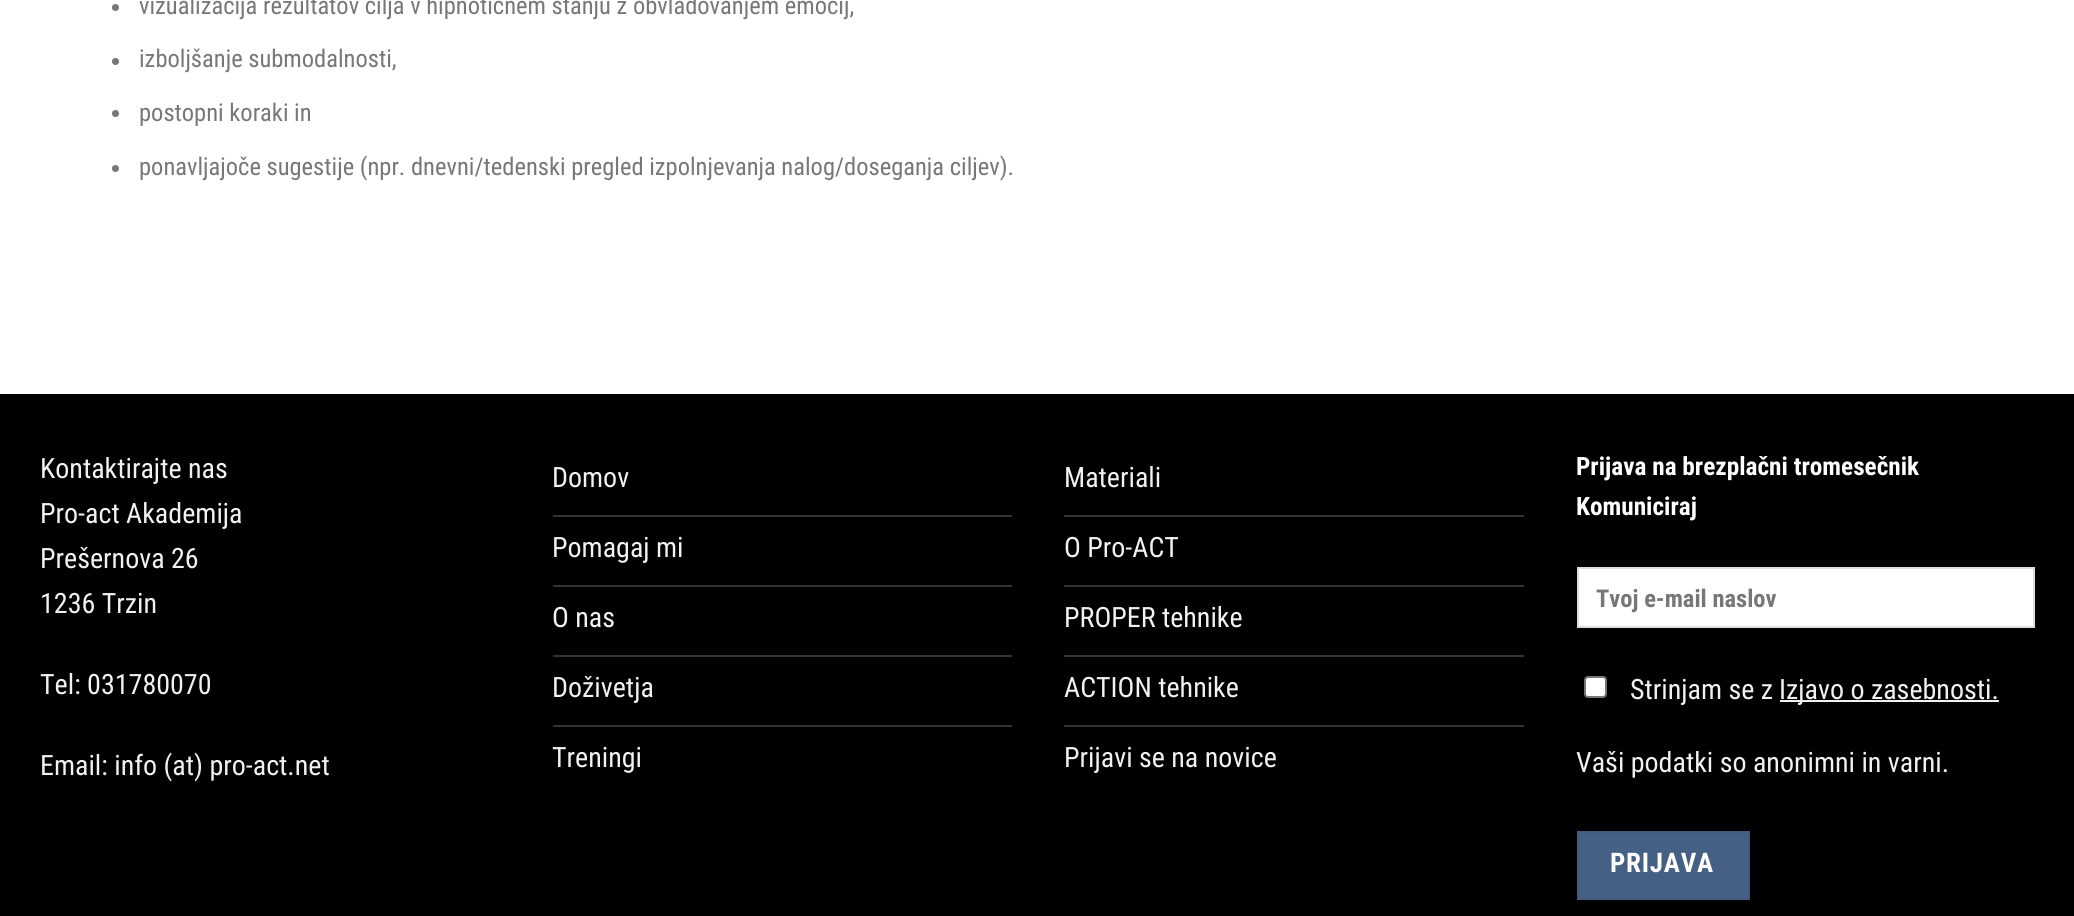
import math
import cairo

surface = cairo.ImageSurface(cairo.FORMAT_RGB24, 2074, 916)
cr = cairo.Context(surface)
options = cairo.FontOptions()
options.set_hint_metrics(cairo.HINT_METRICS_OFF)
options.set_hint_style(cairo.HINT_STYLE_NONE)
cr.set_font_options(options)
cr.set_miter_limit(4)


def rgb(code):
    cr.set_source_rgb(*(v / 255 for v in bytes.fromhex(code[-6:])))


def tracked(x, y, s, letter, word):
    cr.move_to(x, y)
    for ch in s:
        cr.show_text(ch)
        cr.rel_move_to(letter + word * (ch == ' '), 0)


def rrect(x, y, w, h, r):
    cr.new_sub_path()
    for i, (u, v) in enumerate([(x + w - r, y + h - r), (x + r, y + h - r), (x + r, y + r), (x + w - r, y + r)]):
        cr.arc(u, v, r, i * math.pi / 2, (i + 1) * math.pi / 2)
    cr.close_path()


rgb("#ffffff")
cr.paint()
rgb("#777777")
cr.arc(115.5, 7.5, 3.5, 0, 2 * math.pi)
cr.fill()
cr.arc(115.5, 61.5, 3.5, 0, 2 * math.pi)
cr.fill()
cr.arc(115.5, 113.5, 3.5, 0, 2 * math.pi)
cr.fill()
cr.arc(115.5, 168.5, 3.5, 0, 2 * math.pi)
cr.fill()
for x, y, w, h, color in [
    (0, 394, 2074, 522, "#000000"),
    (553, 515, 459, 2, "#333333"),
    (553, 585, 459, 2, "#333333"),
    (553, 655, 459, 2, "#333333"),
    (553, 725, 459, 2, "#333333"),
    (1064, 515, 460, 2, "#333333"),
    (1064, 585, 460, 2, "#333333"),
    (1064, 655, 460, 2, "#333333"),
    (1064, 725, 460, 2, "#333333"),
]:
    rgb(color)
    cr.rectangle(x, y, w, h)
    cr.fill()
rgb("#ffffff")
cr.rectangle(1578, 568, 456, 59)
cr.fill_preserve()
rgb("#dddddd")
cr.stroke()
rgb("#ffffff")
rrect(1585, 677, 21, 20, 3)
cr.fill_preserve()
rgb("#767676")
cr.stroke()
rgb("#f1f1f1")
cr.rectangle(1780, 700, 219, 2)
cr.fill()
rgb("#446084")
cr.rectangle(1578, 832, 171, 67)
cr.fill_preserve()
rgb("#415b7d")
cr.stroke()
cr.select_font_face("Roboto Condensed")
cr.set_font_size(24.5)
rgb("#777777")
for x, y, s in [
    (139, 14, "vizualizacija rezultatov cilja v hipnotičnem stanju z obvladovanjem emocij,"),
    (139, 67, "izboljšanje submodalnosti,"),
    (139, 121, "postopni koraki in"),
    (139, 175, "ponavljajoče sugestije (npr. dnevni/tedenski pregled izpolnjevanja nalog/doseganja ciljev)."),
]:
    cr.move_to(x, y)
    cr.show_text(s)
cr.set_font_size(28)
rgb("#f1f1f1")
for x, y, s in [
    (40, 478, "Kontaktirajte nas"),
    (40, 523, "Pro-act Akademija"),
    (40, 568, "Prešernova 26"),
    (40, 613, "1236 Trzin"),
    (40, 694, "Tel: 031780070"),
    (40, 775, "Email: info (at) pro-act.net"),
    (552, 487, "Domov"),
    (552, 557, "Pomagaj mi"),
    (552, 627, "O nas"),
    (552, 697, "Doživetja"),
    (552, 767, "Treningi"),
    (1064, 487, "Materiali"),
    (1064, 557, "O Pro-ACT"),
    (1064, 627, "PROPER tehnike"),
    (1064, 697, "ACTION tehnike"),
    (1064, 767, "Prijavi se na novice"),
]:
    cr.move_to(x, y)
    cr.show_text(s)
cr.select_font_face("Roboto Condensed", cairo.FONT_SLANT_NORMAL, cairo.FONT_WEIGHT_BOLD)
cr.set_font_size(25.25)
rgb("#ffffff")
cr.move_to(1576, 475)
cr.show_text("Prijava na brezplačni tromesečnik")
cr.move_to(1576, 515)
cr.show_text("Komuniciraj")
cr.set_font_size(24.5)
rgb("#777777")
cr.move_to(1596, 607)
cr.show_text("Tvoj e-mail naslov")
cr.select_font_face("Roboto Condensed")
cr.set_font_size(28)
rgb("#f1f1f1")
for x, y, s in [
    (1630, 699, "Strinjam se z"),
    (1779, 699, "Izjavo o zasebnosti."),
    (1576, 772, "Vaši podatki so anonimni in varni."),
]:
    cr.move_to(x, y)
    cr.show_text(s)
cr.select_font_face("Roboto Condensed", cairo.FONT_SLANT_NORMAL, cairo.FONT_WEIGHT_BOLD)
cr.set_font_size(27)
rgb("#ffffff")
tracked(1610, 872, "PRIJAVA", 0.75, 0)
surface.write_to_png("page.png")
